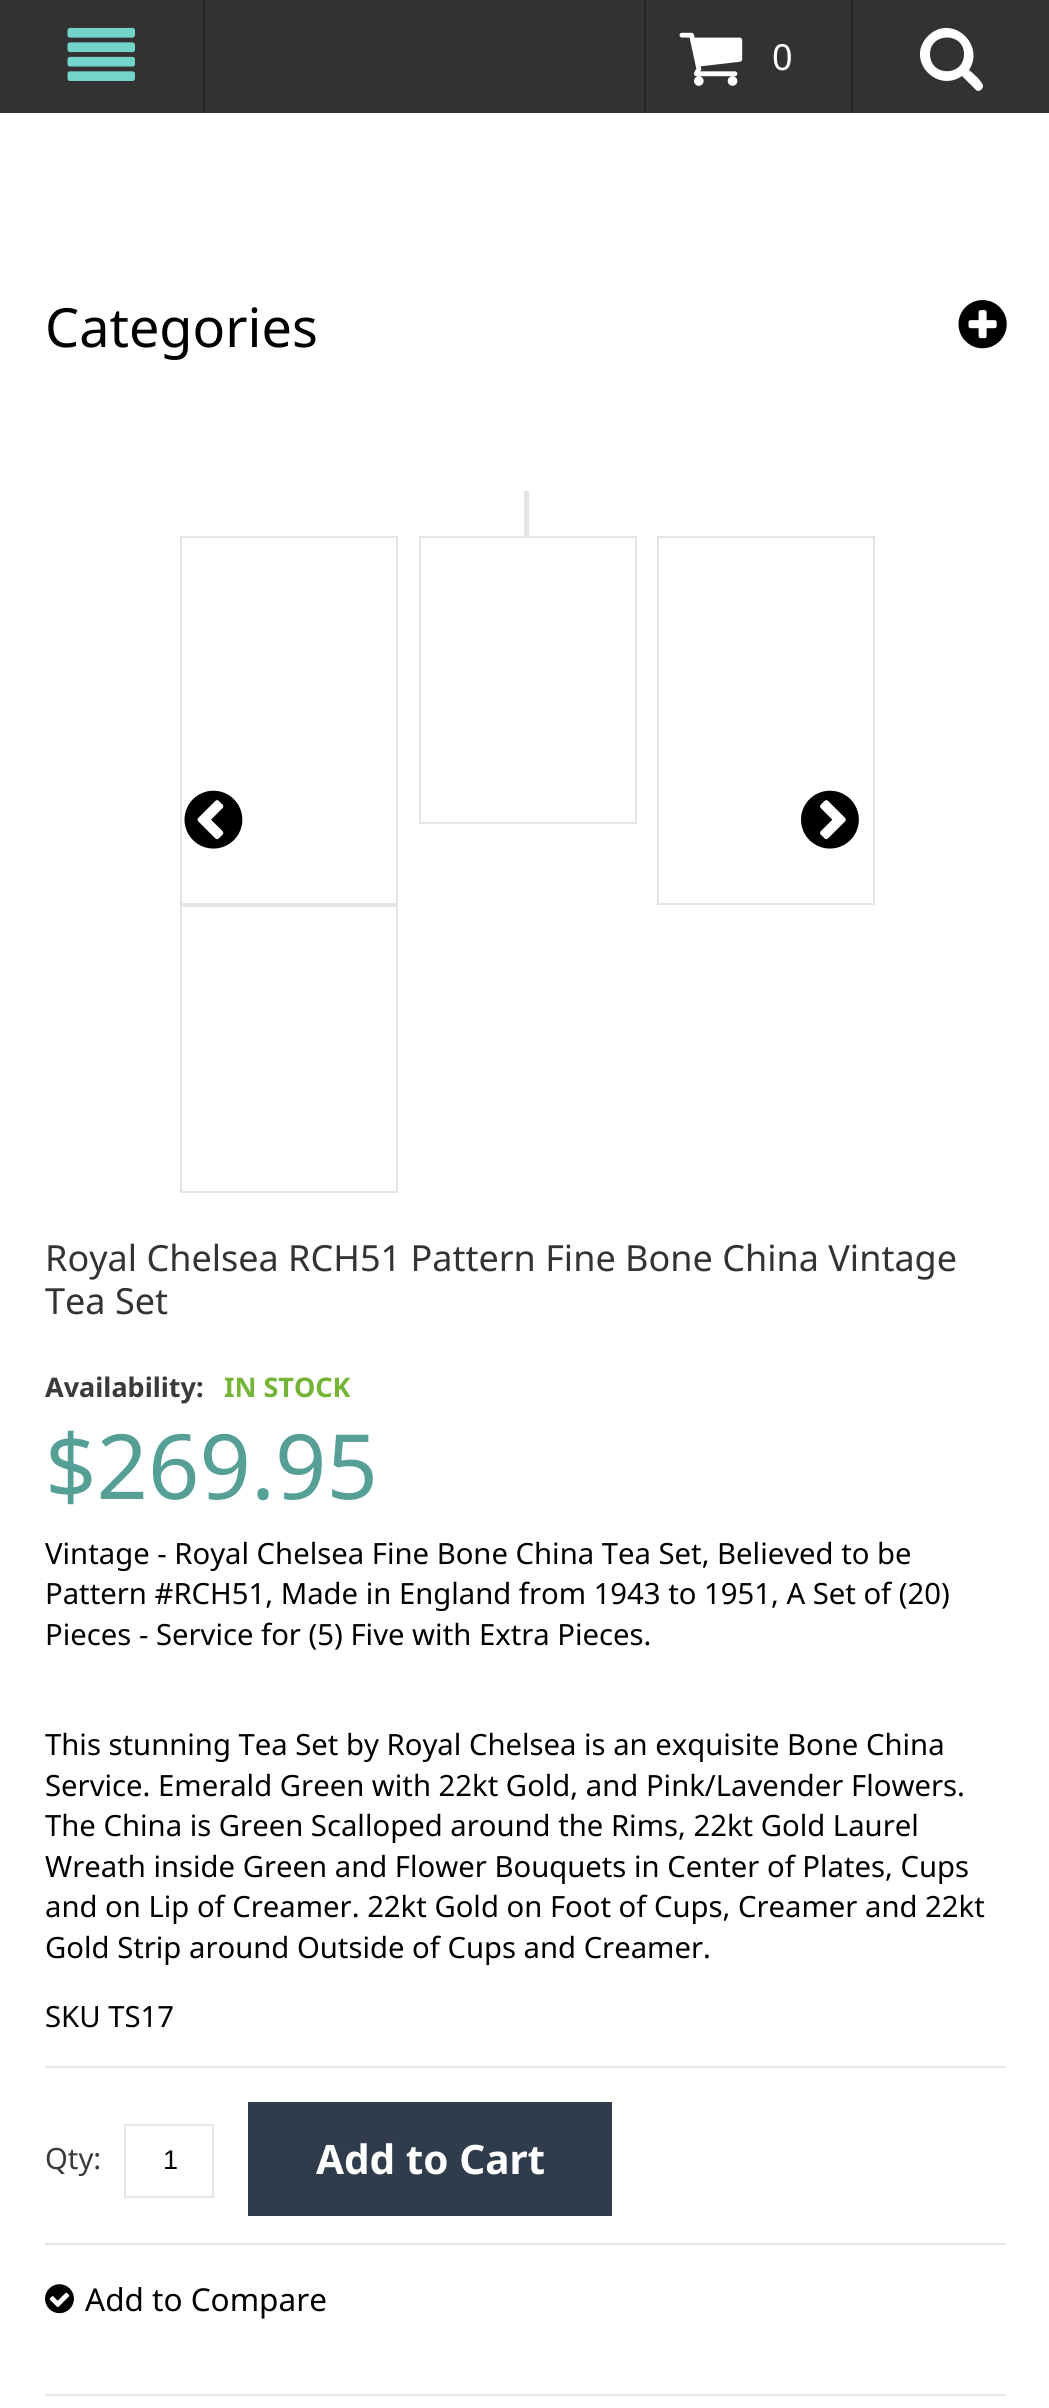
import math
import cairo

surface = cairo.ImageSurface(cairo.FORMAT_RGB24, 1049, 2408)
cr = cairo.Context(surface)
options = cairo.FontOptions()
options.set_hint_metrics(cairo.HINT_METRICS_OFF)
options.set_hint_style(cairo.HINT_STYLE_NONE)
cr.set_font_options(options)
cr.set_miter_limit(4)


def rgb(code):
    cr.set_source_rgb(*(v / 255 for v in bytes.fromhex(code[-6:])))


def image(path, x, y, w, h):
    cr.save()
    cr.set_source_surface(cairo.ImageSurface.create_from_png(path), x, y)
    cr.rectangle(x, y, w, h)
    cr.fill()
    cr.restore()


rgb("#ffffff")
cr.paint()
rgb("#323232")
cr.rectangle(0, 0, 1049, 113)
cr.fill()
rgb("#232323")
cr.rectangle(203, 0, 2, 113)
cr.fill()
image("img/1.png", 67, 27, 68, 54)
cr.rectangle(851, 0, 2, 113)
cr.fill()
rgb("#ffffff")
cr.new_path()
cr.move_to(964, 54)
cr.curve_to(964, 77, 930, 77, 930, 54)
cr.curve_to(930, 32, 964, 32, 964, 54)
cr.close_path()
cr.move_to(983, 86)
cr.curve_to(983, 82, 972, 72, 969, 70)
cr.curve_to(986, 44, 951, 13, 928, 36)
cr.curve_to(905, 59, 936, 94, 962, 76)
cr.line_to(975, 89)
cr.curve_to(976, 90, 977, 91, 978, 91)
cr.curve_to(981, 91, 983, 88, 983, 86)
cr.close_path()
cr.fill()
rgb("#232323")
cr.rectangle(644, 0, 2, 113)
cr.fill()
image("img/2.png", 679, 32, 64, 54)
image("img/3.png", 958, 300, 49, 49)
rgb("#e5e5e5")
cr.rectangle(524, 491, 5, 45)
cr.fill()
cr.rectangle(181, 537, 216, 367)
cr.stroke()
cr.rectangle(420, 537, 216, 286)
cr.stroke()
cr.rectangle(658, 537, 216, 367)
cr.stroke()
cr.rectangle(181, 906, 216, 286)
cr.stroke()
image("img/4.png", 184, 790, 59, 59)
image("img/5.png", 801, 790, 58, 59)
cr.rectangle(45, 2066, 961, 2)
cr.fill()
cr.rectangle(125, 2125, 88, 72)
cr.stroke()
rgb("#303c4b")
cr.rectangle(248, 2102, 364, 114)
cr.fill()
rgb("#e5e5e5")
cr.rectangle(45, 2243, 961, 2)
cr.fill()
image("img/6.png", 45, 2284, 29, 30)
cr.rectangle(45, 2394, 961, 2)
cr.fill()
cr.select_font_face("Noto Sans")
cr.set_font_size(36)
rgb("#ffffff")
cr.move_to(772, 70)
cr.show_text("0")
cr.set_font_size(54)
rgb("#000000")
cr.move_to(45, 347)
cr.show_text("Categories")
cr.set_font_size(36)
rgb("#333333")
cr.move_to(45, 1271)
cr.show_text("Royal Chelsea RCH51 Pattern Fine Bone China Vintage")
cr.move_to(45, 1314)
cr.show_text("Tea Set")
cr.select_font_face("Noto Sans", cairo.FONT_SLANT_NORMAL, cairo.FONT_WEIGHT_BOLD)
cr.set_font_size(27)
rgb("#3a3a3a")
cr.move_to(45, 1397)
cr.show_text("Availability:")
rgb("#74b436")
cr.move_to(224, 1397)
cr.show_text("IN STOCK")
cr.select_font_face("Noto Sans")
cr.set_font_size(90)
rgb("#569f96")
cr.move_to(45, 1499)
cr.show_text("$269.95")
cr.set_font_size(29.25)
rgb("#000000")
for x, y, s in [
    (45, 1564, "Vintage - Royal Chelsea Fine Bone China Tea Set, Believed to be"),
    (45, 1604, "Pattern #RCH51, Made in England from 1943 to 1951, A Set of (20)"),
    (45, 1645, "Pieces - Service for (5) Five with Extra Pieces."),
    (45, 1755, "This stunning Tea Set by Royal Chelsea is an exquisite Bone China"),
    (45, 1796, "Service. Emerald Green with 22kt Gold, and Pink/Lavender Flowers."),
    (45, 1836, "The China is Green Scalloped around the Rims, 22kt Gold Laurel"),
    (45, 1877, "Wreath inside Green and Flower Bouquets in Center of Plates, Cups"),
    (45, 1917, "and on Lip of Creamer. 22kt Gold on Foot of Cups, Creamer and 22kt"),
    (45, 1958, "Gold Strip around Outside of Cups and Creamer."),
    (45, 2027, "SKU TS17"),
]:
    cr.move_to(x, y)
    cr.show_text(s)
rgb("#3a3a3a")
cr.move_to(45, 2169)
cr.show_text("Qty:")
cr.select_font_face("Liberation Sans")
cr.set_font_size(27)
rgb("#000000")
cr.move_to(163, 2169)
cr.show_text("1")
cr.select_font_face("Noto Sans", cairo.FONT_SLANT_NORMAL, cairo.FONT_WEIGHT_BOLD)
cr.set_font_size(40.5)
rgb("#ffffff")
cr.move_to(316, 2174)
cr.show_text("Add to Cart")
cr.select_font_face("Noto Sans")
cr.set_font_size(31.5)
rgb("#000000")
cr.move_to(85, 2311)
cr.show_text("Add to Compare")
surface.write_to_png("page.png")
